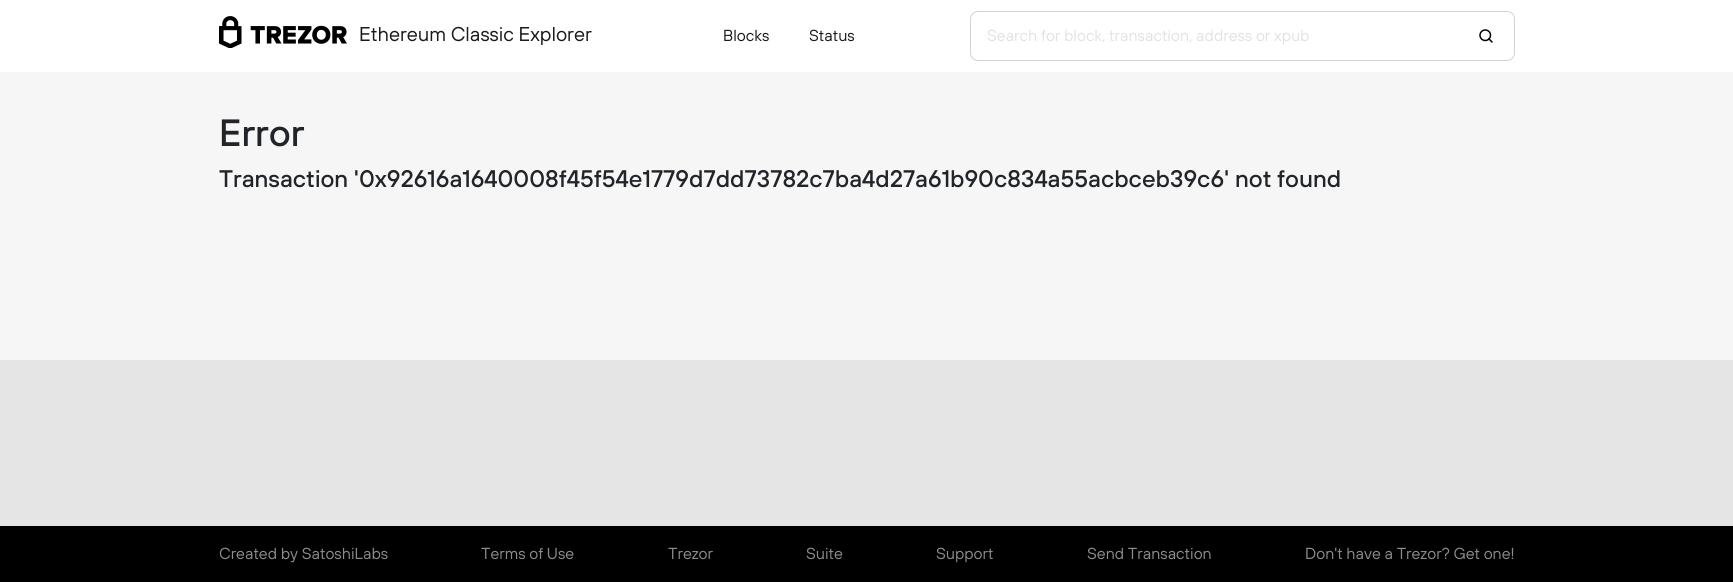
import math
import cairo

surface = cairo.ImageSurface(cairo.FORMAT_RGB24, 1733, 582)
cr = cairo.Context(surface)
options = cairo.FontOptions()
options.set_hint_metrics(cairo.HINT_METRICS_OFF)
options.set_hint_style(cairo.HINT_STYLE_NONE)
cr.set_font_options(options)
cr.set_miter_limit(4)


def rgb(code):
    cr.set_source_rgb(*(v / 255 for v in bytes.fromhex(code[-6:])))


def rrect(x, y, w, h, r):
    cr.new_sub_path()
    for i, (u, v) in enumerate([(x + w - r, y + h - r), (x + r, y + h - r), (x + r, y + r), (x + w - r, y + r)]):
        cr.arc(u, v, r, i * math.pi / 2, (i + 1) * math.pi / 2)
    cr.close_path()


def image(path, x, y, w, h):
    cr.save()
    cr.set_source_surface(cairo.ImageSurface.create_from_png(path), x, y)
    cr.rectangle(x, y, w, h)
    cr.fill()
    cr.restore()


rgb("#e5e5e5")
cr.paint()
rgb("#f6f6f6")
cr.rectangle(0, 72, 1733, 288)
cr.fill()
rgb("#ffffff")
cr.rectangle(0, 0, 1733, 72)
cr.fill()
image("img/1.png", 219, 16, 128, 32)
rrect(970.5, 11.5, 544, 49, 7.5)
rgb("#ced4da")
cr.set_line_width(1)
cr.stroke()
image("img/2.png", 1479, 29, 14, 14)
rgb("#000000")
cr.rectangle(0, 526, 1733, 56)
cr.fill()
cr.select_font_face("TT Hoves")
cr.set_font_size(20)
rgb("#1a1a1a")
cr.move_to(359, 41)
cr.show_text("Ethereum Classic Explorer")
cr.set_font_size(16)
cr.move_to(723, 41)
cr.show_text("Blocks")
cr.move_to(809, 41)
cr.show_text("Status")
rgb("#e2e2e2")
cr.move_to(987, 41)
cr.show_text("Search for block, transaction, address or xpub")
cr.select_font_face("TT Hoves Medium")
cr.set_font_size(38)
rgb("#212529")
cr.move_to(219, 146)
cr.show_text("Error")
cr.set_font_size(24)
cr.move_to(219, 187)
cr.show_text("Transaction '0x92616a1640008f45f54e1779d7dd73782c7ba4d27a61b90c834a55acbceb39c6' not found")
cr.select_font_face("TT Hoves")
cr.set_font_size(16)
rgb("#8c8c8c")
for x, y, s in [
    (219, 559, "Created by SatoshiLabs"),
    (481, 559, "Terms of Use"),
    (668, 559, "Trezor"),
    (806, 559, "Suite"),
    (936, 559, "Support"),
    (1087, 559, "Send Transaction"),
    (1305, 559, "Don't have a Trezor? Get one!"),
]:
    cr.move_to(x, y)
    cr.show_text(s)
surface.write_to_png("page.png")
